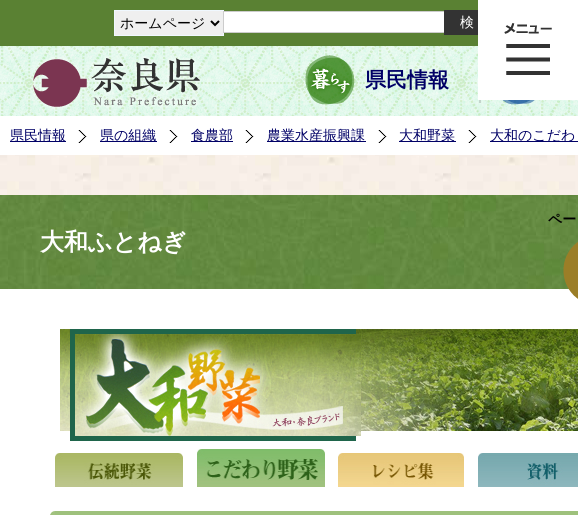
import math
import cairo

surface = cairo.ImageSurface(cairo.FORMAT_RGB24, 578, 515)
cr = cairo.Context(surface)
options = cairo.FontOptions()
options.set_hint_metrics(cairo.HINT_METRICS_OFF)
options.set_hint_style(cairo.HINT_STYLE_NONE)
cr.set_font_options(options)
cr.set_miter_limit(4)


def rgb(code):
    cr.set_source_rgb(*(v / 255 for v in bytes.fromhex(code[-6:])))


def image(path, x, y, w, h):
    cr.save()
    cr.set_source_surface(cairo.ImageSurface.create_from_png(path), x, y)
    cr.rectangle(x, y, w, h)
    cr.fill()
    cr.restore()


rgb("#ffffff")
cr.paint()
image("img/1.png", 0, 155, 578, 40)
rgb("#5a8133")
cr.rectangle(0, 0, 478, 46)
cr.fill()
rgb("#efefef")
cr.rectangle(114.5, 10.5, 109, 25)
cr.fill_preserve()
rgb("#f0f8ff")
cr.set_line_width(1)
cr.stroke()
cr.new_path()
cr.move_to(211, 21)
cr.line_to(215, 25)
cr.line_to(219, 21)
rgb("#000000")
cr.set_line_width(2)
cr.stroke()
rgb("#ffffff")
cr.rectangle(223.5, 11.5, 221, 21)
cr.fill_preserve()
rgb("#cccccc")
cr.set_line_width(1)
cr.stroke()
rgb("#333333")
cr.rectangle(444, 10, 34, 25)
cr.fill()
image("img/3.png", 0, 46, 578, 70)
image("img/2.png", 31, 56, 171, 53)
image("img/4.png", 305, 55, 50, 50)
cr.set_source_rgba(0.408, 0.408, 0.408, 0.25)
cr.rectangle(479, 100, 2, 3)
cr.fill()
image("img/5.png", 502, 100, 33, 5)
image("img/6.png", 478, 0, 100, 100)
rgb("#000066")
cr.rectangle(10, 141, 56, 1)
cr.fill()
image("img/7.png", 78, 130, 9, 13)
cr.rectangle(100, 141, 57, 1)
cr.fill()
image("img/7.png", 169, 130, 9, 13)
cr.rectangle(191, 141, 42, 1)
cr.fill()
image("img/7.png", 245, 130, 9, 13)
cr.rectangle(267, 141, 99, 1)
cr.fill()
image("img/7.png", 378, 130, 9, 13)
cr.rectangle(399, 141, 57, 1)
cr.fill()
image("img/7.png", 468, 130, 9, 13)
cr.rectangle(490, 141, 88, 1)
cr.fill()
image("img/9.png", 0, 195, 578, 94)
image("img/8.png", 563, 242, 15, 57)
image("img/10.png", 60, 329, 518, 102)
rgb("#1f654b")
cr.rectangle(70, 329, 286, 112)
cr.fill()
image("img/11.png", 75, 334, 286, 102)
image("img/12.png", 55, 453, 128, 34)
image("img/13.png", 197, 449, 128, 38)
image("img/14.png", 338, 453, 126, 34)
image("img/15.png", 478, 453, 100, 34)
rgb("#9ec17c")
cr.rectangle(50, 511, 528, 4)
cr.fill()
image("img/16.png", 50, 511, 5, 4)
cr.select_font_face("WenQuanYi Zen Hei Medium")
cr.set_font_size(14)
rgb("#000000")
cr.move_to(120, 28)
cr.show_text("ホームページ")
rgb("#ffffff")
cr.move_to(460, 27)
cr.show_text("検")
cr.select_font_face("WenQuanYi Zen Hei", cairo.FONT_SLANT_NORMAL, cairo.FONT_WEIGHT_BOLD)
cr.set_font_size(21)
rgb("#000066")
cr.move_to(365, 87)
cr.show_text("県民情報")
cr.select_font_face("WenQuanYi Zen Hei Medium")
cr.set_font_size(14)
for x, y, s in [
    (10, 140, "県民情報"),
    (100, 140, "県の組織"),
    (191, 140, "食農部"),
    (267, 140, "農業水産振興課"),
    (399, 140, "大和野菜"),
    (490, 140, "大和のこだわ"),
]:
    cr.move_to(x, y)
    cr.show_text(s)
cr.select_font_face("WenQuanYi Zen Hei", cairo.FONT_SLANT_NORMAL, cairo.FONT_WEIGHT_BOLD)
rgb("#000000")
cr.move_to(548, 224)
cr.show_text("ペー")
cr.set_font_size(24)
rgb("#ffffff")
cr.move_to(40, 250)
cr.show_text("大和ふとねぎ")
surface.write_to_png("page.png")
